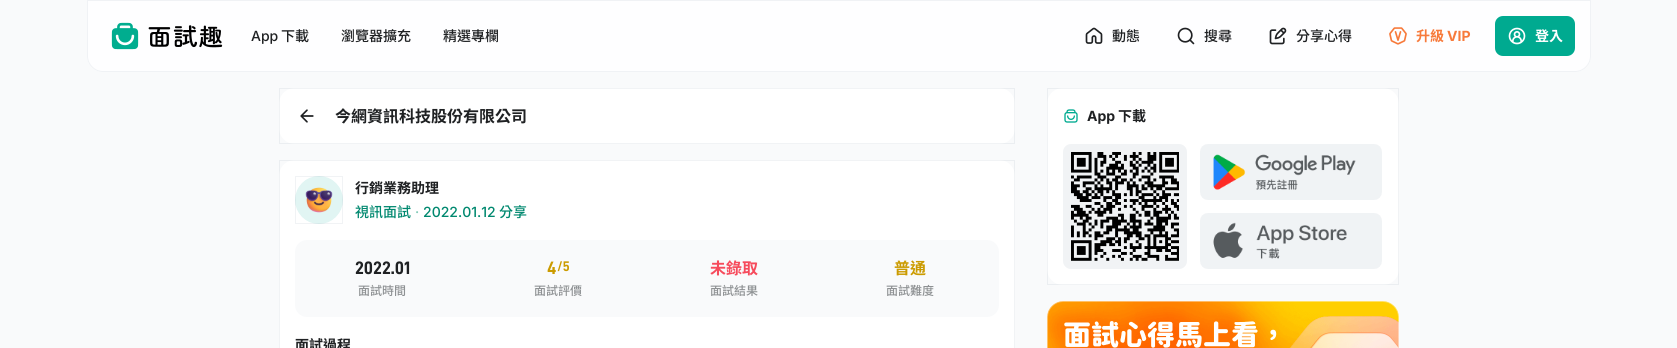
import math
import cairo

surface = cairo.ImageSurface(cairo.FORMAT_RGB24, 1677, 348)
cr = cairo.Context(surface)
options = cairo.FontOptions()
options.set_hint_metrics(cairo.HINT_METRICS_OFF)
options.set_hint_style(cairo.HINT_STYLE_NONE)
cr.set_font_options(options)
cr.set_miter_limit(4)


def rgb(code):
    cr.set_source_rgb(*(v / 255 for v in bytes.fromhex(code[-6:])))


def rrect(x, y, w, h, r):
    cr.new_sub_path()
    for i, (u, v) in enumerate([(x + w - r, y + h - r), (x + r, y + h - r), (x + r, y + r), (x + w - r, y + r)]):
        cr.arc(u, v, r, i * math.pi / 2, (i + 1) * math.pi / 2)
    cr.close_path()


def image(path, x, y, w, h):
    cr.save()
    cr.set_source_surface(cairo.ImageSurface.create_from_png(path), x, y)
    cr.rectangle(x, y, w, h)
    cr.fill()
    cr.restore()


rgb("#f9fafb")
cr.paint()
rgb("#fefeff")
cr.new_path()
cr.move_to(87, 0)
cr.line_to(1591, 0)
cr.line_to(1591, 56)
cr.curve_to(1591, 65, 1584, 72, 1575, 72)
cr.line_to(103, 72)
cr.curve_to(94, 72, 87, 65, 87, 56)
cr.close_path()
cr.fill()
image("img/1.png", 111, 22, 112, 28)
cr.new_path()
cr.move_to(87.5, 0.5)
cr.line_to(1590.5, 0.5)
cr.line_to(1590.5, 56)
cr.curve_to(1590.5, 64.5, 1583.5, 71.5, 1575, 71.5)
cr.line_to(103, 71.5)
cr.curve_to(94.5, 71.5, 87.5, 64.5, 87.5, 56)
cr.close_path()
rgb("#f0f2f5")
cr.set_line_width(1)
cr.stroke()
image("img/2.png", 1085, 27, 18, 17)
image("img/3.png", 1177, 27, 18, 18)
image("img/4.png", 1269, 27, 18, 18)
image("img/5.png", 1389, 27, 18, 18)
rgb("#00aa90")
rrect(1495, 16, 80, 40, 8)
cr.fill()
image("img/6.png", 1508, 27, 18, 18)
rgb("#ffffff")
rrect(279, 88, 736, 56, 16)
cr.fill()
image("img/7.png", 300, 109, 14, 14)
cr.rectangle(279.5, 88.5, 735, 55)
cr.set_source_rgba(0.086, 0.22, 0.353, 0.06)
cr.stroke()
rgb("#ffffff")
rrect(279, 160, 736, 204, 16)
cr.fill()
cr.rectangle(279.5, 160.5, 735, 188)
cr.set_source_rgba(0.086, 0.22, 0.353, 0.06)
cr.stroke()
image("img/8.png", 295, 176, 48, 48)
cr.rectangle(295.5, 176.5, 47, 47)
cr.stroke()
rgb("#f9fafb")
rrect(295, 240, 704, 77, 12)
cr.fill()
rgb("#ffffff")
rrect(1047, 88, 352, 197, 16)
cr.fill()
cr.rectangle(1047.5, 88.5, 351, 196)
cr.set_source_rgba(0.086, 0.22, 0.353, 0.06)
cr.stroke()
image("img/9.png", 1064, 109, 14, 14)
rgb("#f1f3f5")
rrect(1063, 144, 124, 125, 8)
cr.fill()
image("img/10.png", 1071, 152, 108, 109)
image("img/11.png", 1200, 144, 182, 56)
image("img/12.png", 1200, 213, 182, 56)
image("img/13.png", 1047, 301, 352, 47)
rrect(1047.5, 301.5, 351, 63, 15.5)
cr.set_source_rgba(1, 1, 1, 0.4)
cr.stroke()
cr.select_font_face("Inter Medium")
cr.set_font_size(14)
rgb("#1f2123")
cr.move_to(251, 41)
cr.show_text("App")
cr.select_font_face("Noto Sans TC Medium")
for x, y, s in [
    (281, 41, "下載"),
    (341, 41, "瀏覽器擴充"),
    (443, 41, "精選專欄"),
    (1112, 41, "動態"),
    (1204, 41, "搜尋"),
    (1296, 41, "分享心得"),
]:
    cr.move_to(x, y)
    cr.show_text(s)
cr.select_font_face("Noto Sans TC", cairo.FONT_SLANT_NORMAL, cairo.FONT_WEIGHT_BOLD)
rgb("#f77a3b")
cr.move_to(1416, 41)
cr.show_text("升級")
cr.select_font_face("Inter", cairo.FONT_SLANT_NORMAL, cairo.FONT_WEIGHT_BOLD)
cr.move_to(1447, 41)
cr.show_text("VIP")
cr.select_font_face("Noto Sans TC", cairo.FONT_SLANT_NORMAL, cairo.FONT_WEIGHT_BOLD)
rgb("#ffffff")
cr.move_to(1535, 41)
cr.show_text("登入")
cr.set_font_size(16)
rgb("#1f2123")
cr.move_to(335, 122)
cr.show_text("今網資訊科技股份有限公司")
cr.set_font_size(14)
cr.move_to(355, 193)
cr.show_text("行銷業務助理")
cr.select_font_face("Noto Sans TC Medium")
rgb("#00886f")
cr.move_to(355, 217)
cr.show_text("視訊面試")
cr.select_font_face("Inter Medium")
rgb("#81cab7")
cr.move_to(415, 217)
cr.show_text("·")
rgb("#00886f")
cr.move_to(423, 217)
cr.show_text("2022.01.12")
cr.select_font_face("Noto Sans TC Medium")
cr.move_to(499, 217)
cr.show_text("分享")
cr.select_font_face("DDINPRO", cairo.FONT_SLANT_NORMAL, cairo.FONT_WEIGHT_BOLD)
cr.set_font_size(18)
rgb("#1f2123")
cr.move_to(355, 274)
cr.show_text("2022.01")
cr.select_font_face("Noto Sans TC Medium")
cr.set_font_size(12)
rgb("#8e9193")
cr.move_to(358, 295)
cr.show_text("面試時間")
cr.select_font_face("DDINPRO", cairo.FONT_SLANT_NORMAL, cairo.FONT_WEIGHT_BOLD)
cr.set_font_size(18)
rgb("#cb9b00")
cr.move_to(547, 274)
cr.show_text("4")
cr.set_font_size(14)
cr.move_to(557, 271)
cr.show_text("/5")
cr.select_font_face("Noto Sans TC Medium")
cr.set_font_size(12)
rgb("#8e9193")
cr.move_to(534, 295)
cr.show_text("面試評價")
cr.select_font_face("Noto Sans TC", cairo.FONT_SLANT_NORMAL, cairo.FONT_WEIGHT_BOLD)
cr.set_font_size(16)
rgb("#f64b5c")
cr.move_to(710, 274)
cr.show_text("未錄取")
cr.select_font_face("Noto Sans TC Medium")
cr.set_font_size(12)
rgb("#8e9193")
cr.move_to(710, 295)
cr.show_text("面試結果")
cr.select_font_face("Noto Sans TC", cairo.FONT_SLANT_NORMAL, cairo.FONT_WEIGHT_BOLD)
cr.set_font_size(16)
rgb("#cb9b00")
cr.move_to(894, 274)
cr.show_text("普通")
cr.select_font_face("Noto Sans TC Medium")
cr.set_font_size(12)
rgb("#8e9193")
cr.move_to(886, 295)
cr.show_text("面試難度")
cr.select_font_face("Noto Sans TC", cairo.FONT_SLANT_NORMAL, cairo.FONT_WEIGHT_BOLD)
cr.set_font_size(14)
rgb("#1f2123")
cr.move_to(295, 350)
cr.show_text("面試過程")
cr.select_font_face("Inter", cairo.FONT_SLANT_NORMAL, cairo.FONT_WEIGHT_BOLD)
cr.move_to(1087, 121)
cr.show_text("App")
cr.select_font_face("Noto Sans TC", cairo.FONT_SLANT_NORMAL, cairo.FONT_WEIGHT_BOLD)
cr.move_to(1118, 121)
cr.show_text("下載")
surface.write_to_png("page.png")
